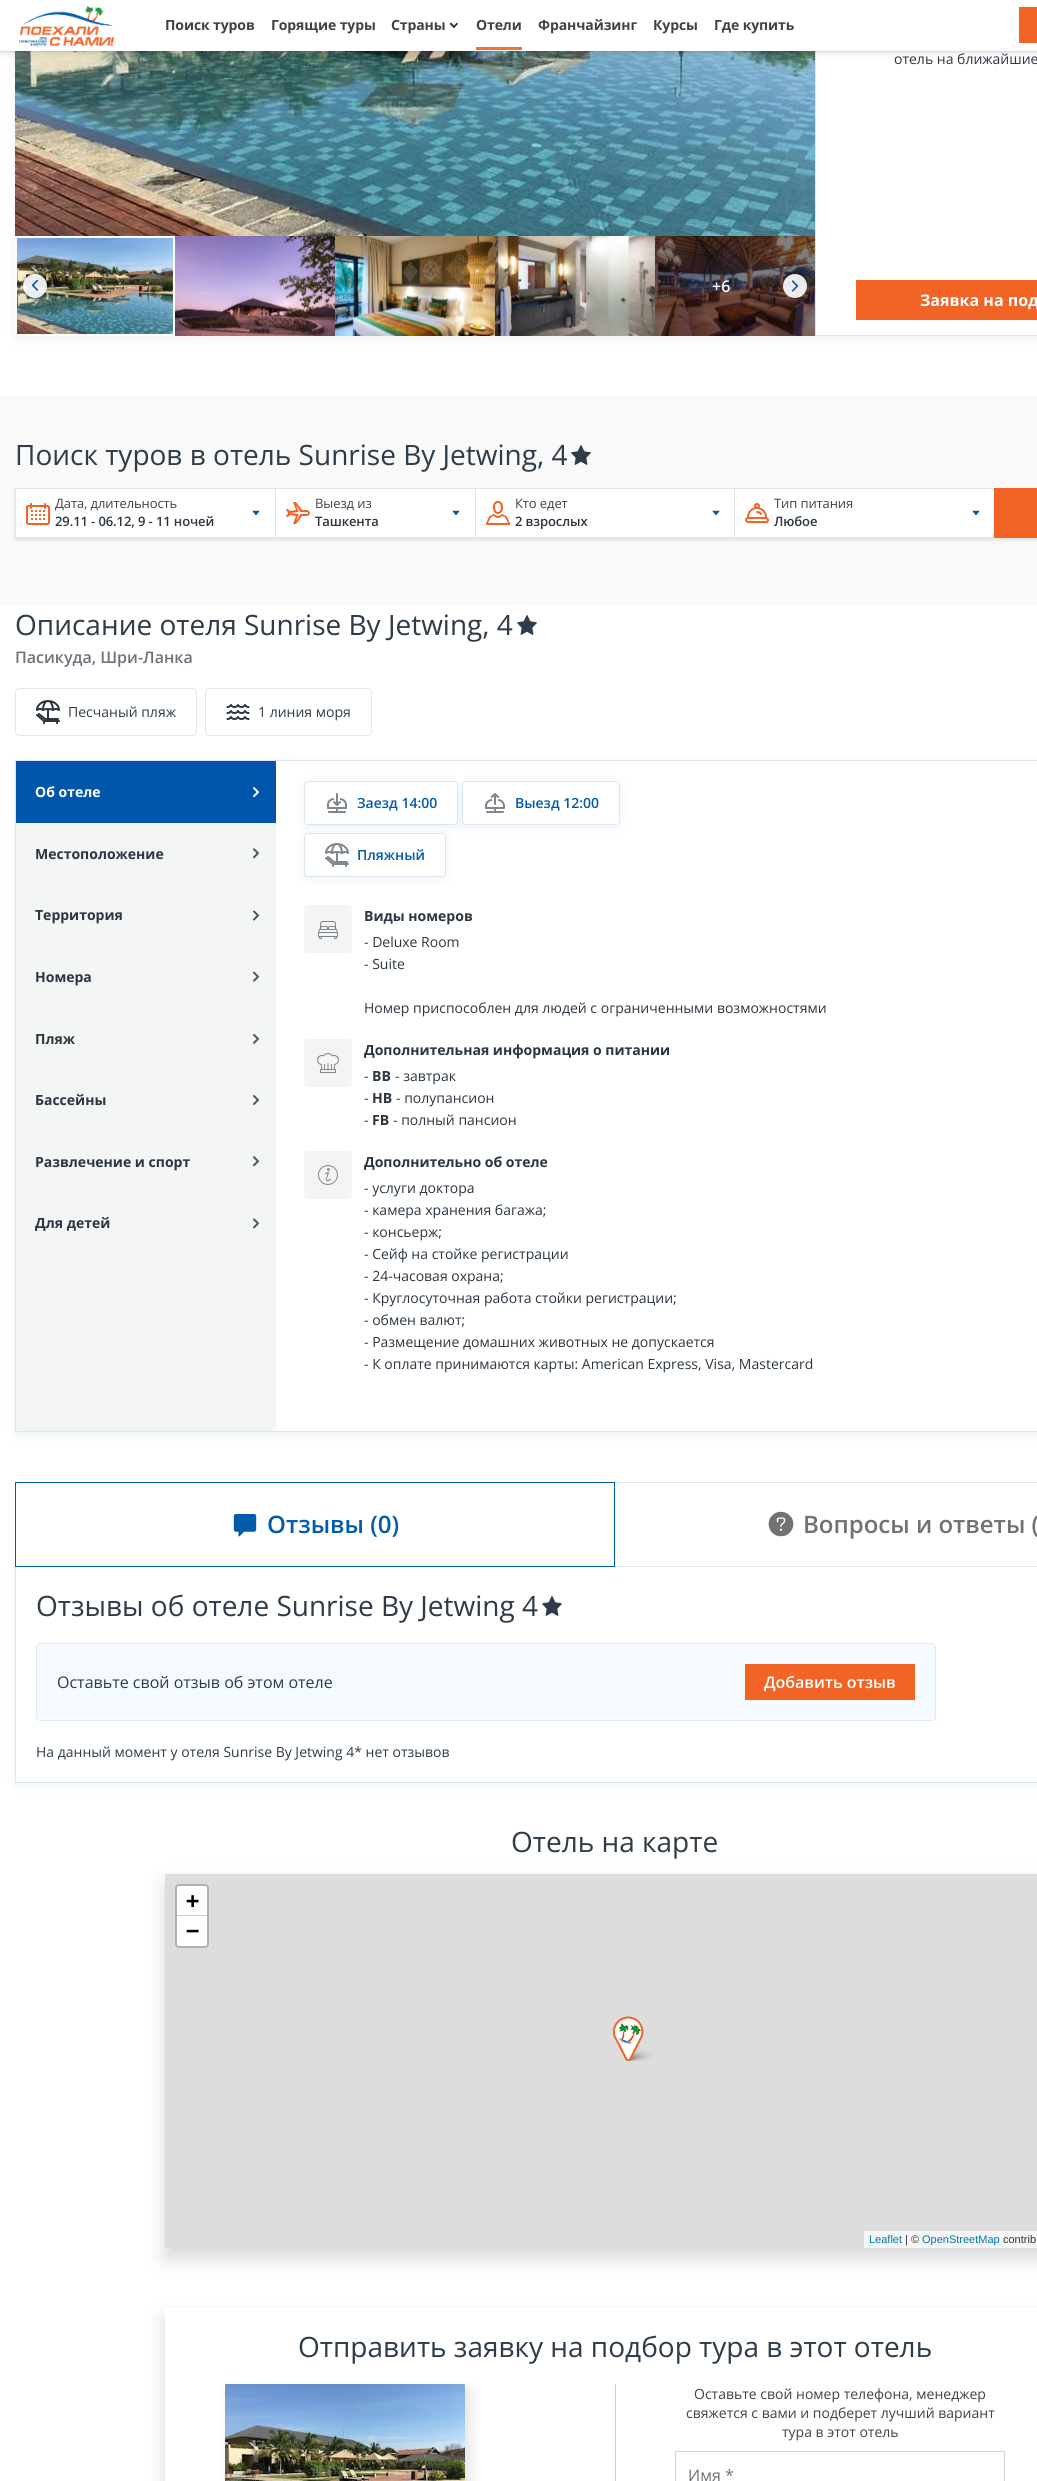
import math
import cairo

surface = cairo.ImageSurface(cairo.FORMAT_RGB24, 1037, 2481)
cr = cairo.Context(surface)
options = cairo.FontOptions()
options.set_hint_metrics(cairo.HINT_METRICS_OFF)
options.set_hint_style(cairo.HINT_STYLE_NONE)
cr.set_font_options(options)
cr.set_miter_limit(4)


def rgb(code):
    cr.set_source_rgb(*(v / 255 for v in bytes.fromhex(code[-6:])))


def tracked(x, y, s, letter, word):
    cr.move_to(x, y)
    for ch in s:
        cr.show_text(ch)
        cr.rel_move_to(letter + word * (ch == ' '), 0)


def rrect(x, y, w, h, r):
    cr.new_sub_path()
    for i, (u, v) in enumerate([(x + w - r, y + h - r), (x + r, y + h - r), (x + r, y + r), (x + w - r, y + r)]):
        cr.arc(u, v, r, i * math.pi / 2, (i + 1) * math.pi / 2)
    cr.close_path()


def soft_shadow(x, y, w, h, r, blur, alpha):
    cr.push_group_with_content(cairo.CONTENT_ALPHA)
    cr.set_operator(cairo.OPERATOR_SOURCE)
    for i in range(15, -16, -2):
        e = blur * i / 6
        if min(w, h) + 2 * e > 0:
            cr.set_source_rgba(0, 0, 0, alpha * math.erfc((i - 1) / 8.5) / 2)
            rrect(x - e, y - e, w + 2 * e, h + 2 * e, max(0, min(r + e + blur * .6, min(w, h) / 2 + e)))
            cr.fill()
    cr.mask(cr.pop_group())


def image(path, x, y, w, h):
    cr.save()
    cr.set_source_surface(cairo.ImageSurface.create_from_png(path), x, y)
    cr.rectangle(x, y, w, h)
    cr.fill()
    cr.restore()


rgb("#ffffff")
cr.paint()
cr.save()
cr.set_fill_rule(cairo.FILL_RULE_EVEN_ODD)
cr.new_path()
cr.move_to(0, 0)
cr.line_to(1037, 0)
cr.line_to(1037, 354)
cr.line_to(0, 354)
cr.close_path()
cr.move_to(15, -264)
cr.line_to(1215, -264)
cr.line_to(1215, 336)
cr.line_to(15, 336)
cr.close_path()
cr.clip()
rgb("#dee9f4")
soft_shadow(15, -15, 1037, 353, 0, 5, 0.6)
cr.restore()
image("img/2.png", 15, 51, 800, 185)
cr.rectangle(815.5, -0.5, 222, 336)
rgb("#dee6ed")
cr.set_line_width(1)
cr.stroke()
rgb("#000000")
soft_shadow(0, 2, 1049, 51, 0, 4, 0.1)
soft_shadow(0, 1, 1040, 51, 0, 1, 0.1)
rgb("#ffffff")
cr.rectangle(0, 0, 1037, 51)
cr.fill()
image("img/1.png", 18, 5, 97, 42)
rgb("#2b3641")
cr.new_path()
cr.move_to(452.5, 27)
cr.line_to(457, 22.5)
cr.line_to(458, 24)
cr.line_to(454, 28)
cr.close_path()
cr.fill()
cr.new_path()
cr.move_to(449.5, 24)
cr.line_to(451, 22.5)
cr.line_to(455.5, 27)
cr.line_to(454, 28)
cr.close_path()
cr.fill()
rgb("#f5712f")
cr.rectangle(476, 47, 46, 3)
cr.fill()
rgb("#f26326")
cr.rectangle(1019, 7, 18, 36)
cr.fill()
image("img/4.png", 17, 238, 156, 96)
cr.save()
cr.set_fill_rule(cairo.FILL_RULE_EVEN_ODD)
cr.new_path()
cr.move_to(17, 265)
cr.line_to(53, 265)
cr.line_to(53, 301)
cr.line_to(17, 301)
cr.close_path()
cr.move_to(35, 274)
cr.curve_to(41.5, 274, 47, 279.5, 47, 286)
cr.curve_to(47, 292.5, 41.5, 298, 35, 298)
cr.curve_to(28.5, 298, 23, 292.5, 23, 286)
cr.curve_to(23, 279.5, 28.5, 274, 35, 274)
cr.close_path()
cr.clip()
rgb("#000000")
soft_shadow(23, 271, 24, 24, 12, 1.5, 0.2)
cr.restore()
cr.set_source_rgba(1, 1, 1, 0.9)
cr.arc(35, 286, 12, 0, 2 * math.pi)
cr.fill()
image("img/3.png", 31, 280, 8, 11)
image("img/5.png", 175, 236, 160, 100)
image("img/6.png", 335, 236, 160, 100)
image("img/7.png", 495, 236, 160, 100)
image("img/8.png", 655, 236, 160, 100)
cr.save()
cr.set_fill_rule(cairo.FILL_RULE_EVEN_ODD)
cr.new_path()
cr.move_to(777, 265)
cr.line_to(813, 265)
cr.line_to(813, 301)
cr.line_to(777, 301)
cr.close_path()
cr.move_to(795, 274)
cr.curve_to(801.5, 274, 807, 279.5, 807, 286)
cr.curve_to(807, 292.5, 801.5, 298, 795, 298)
cr.curve_to(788.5, 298, 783, 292.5, 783, 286)
cr.curve_to(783, 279.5, 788.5, 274, 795, 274)
cr.close_path()
cr.clip()
rgb("#000000")
soft_shadow(783, 271, 24, 24, 12, 1.5, 0.2)
cr.restore()
cr.arc(795, 286, 12, 0, 2 * math.pi)
cr.fill()
image("img/9.png", 791, 280, 8, 12)
rgb("#f26326")
cr.rectangle(856, 280, 181, 40)
cr.fill()
rgb("#f9f9f9")
cr.rectangle(0, 396, 1037, 210)
cr.fill()
image("img/10.png", 571, 445, 20, 20)
rgb("#000000")
soft_shadow(15, 490, 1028, 50, 0, 2, 0.1)
for x, y, w, h, color in [
    (16, 489, 978, 48, "#ffffff"),
    (15, 488, 979, 1, "#dee6ed"),
    (15, 537, 979, 1, "#dee6ed"),
    (15, 488, 1, 50, "#dee6ed"),
]:
    rgb(color)
    cr.rectangle(x, y, w, h)
    cr.fill()
image("img/11.png", 26, 503, 24, 22)
image("img/12.png", 252, 510, 8, 6)
cr.rectangle(275, 488, 1, 50)
cr.fill()
image("img/13.png", 286, 502, 24, 22)
image("img/12.png", 452, 510, 8, 6)
cr.rectangle(475, 488, 1, 50)
cr.fill()
image("img/14.png", 486, 501, 24, 24)
image("img/12.png", 712, 510, 8, 6)
cr.rectangle(734, 488, 1, 50)
cr.fill()
image("img/15.png", 745, 503, 24, 20)
image("img/12.png", 972, 510, 8, 6)
rgb("#f26326")
cr.rectangle(994, 488, 43, 50)
cr.fill()
image("img/16.png", 517, 615, 20, 20)
rrect(15.5, 688.5, 181, 47, 3.5)
rgb("#e6e6e6")
cr.stroke()
image("img/17.png", 36, 700, 24, 24)
rrect(205.5, 688.5, 166, 47, 3.5)
cr.stroke()
image("img/18.png", 226, 704, 24, 16)
cr.save()
cr.set_fill_rule(cairo.FILL_RULE_EVEN_ODD)
cr.new_path()
cr.move_to(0, 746)
cr.line_to(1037, 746)
cr.line_to(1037, 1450)
cr.line_to(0, 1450)
cr.close_path()
cr.move_to(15, 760)
cr.line_to(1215, 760)
cr.line_to(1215, 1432)
cr.line_to(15, 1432)
cr.close_path()
cr.clip()
rgb("#dee9f4")
soft_shadow(15, 762, 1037, 672, 0, 5, 0.6)
cr.restore()
cr.rectangle(15.5, 760.5, 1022, 671)
rgb("#dee6ed")
cr.stroke()
rgb("#f4f5f5")
rrect(16, 761, 260, 670, 4)
cr.fill()
rgb("#0056ad")
cr.rectangle(16, 761, 260, 62)
cr.fill()
image("img/19.png", 253, 787, 6, 10)
image("img/20.png", 253, 848, 6, 11)
image("img/21.png", 253, 910, 6, 11)
image("img/22.png", 253, 971, 6, 11)
image("img/23.png", 253, 1033, 6, 11)
image("img/24.png", 253, 1095, 6, 10)
image("img/25.png", 253, 1156, 6, 11)
image("img/26.png", 253, 1218, 6, 11)
rgb("#dee9f4")
soft_shadow(304, 783, 154, 44, 4, 5, 0.6)
rgb("#ffffff")
rrect(304.5, 781.5, 153, 43, 3.5)
cr.fill_preserve()
rgb("#dee6ed")
cr.stroke()
image("img/27.png", 327, 793, 20, 20)
rgb("#dee9f4")
soft_shadow(462, 783, 158, 44, 4, 5, 0.6)
rgb("#ffffff")
rrect(462.5, 781.5, 157, 43, 3.5)
cr.fill_preserve()
rgb("#dee6ed")
cr.stroke()
image("img/28.png", 485, 793, 20, 20)
rgb("#dee9f4")
soft_shadow(304, 835, 142, 44, 4, 5, 0.6)
rgb("#ffffff")
rrect(304.5, 833.5, 141, 43, 3.5)
cr.fill_preserve()
rgb("#dee6ed")
cr.stroke()
image("img/29.png", 325, 843, 24, 24)
rgb("#f4f4f4")
rrect(304, 905, 48, 48, 4)
cr.fill()
image("img/30.png", 318, 921, 20, 18)
rrect(304, 1039, 48, 48, 4)
cr.fill()
image("img/31.png", 317, 1053, 22, 20)
rrect(304, 1151, 48, 48, 4)
cr.fill()
image("img/32.png", 318, 1165, 20, 20)
cr.save()
cr.set_fill_rule(cairo.FILL_RULE_EVEN_ODD)
cr.new_path()
cr.move_to(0, 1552)
cr.line_to(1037, 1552)
cr.line_to(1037, 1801)
cr.line_to(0, 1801)
cr.close_path()
cr.move_to(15, 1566)
cr.line_to(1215, 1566)
cr.line_to(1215, 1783)
cr.line_to(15, 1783)
cr.close_path()
cr.clip()
rgb("#dee9f4")
soft_shadow(15, 1568, 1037, 217, 0, 5, 0.6)
cr.restore()
rgb("#ffffff")
cr.rectangle(16, 1562, 598, 4)
cr.fill()
cr.rectangle(615, 1562, 422, 4)
cr.fill()
cr.rectangle(15.5, 1566.5, 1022, 216)
rgb("#dee6ed")
cr.stroke()
cr.rectangle(614.5, 1482.5, 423, 84)
cr.stroke()
cr.rectangle(15.5, 1482.5, 599, 84)
rgb("#005bab")
cr.stroke()
image("img/33.png", 233, 1514, 24, 23)
image("img/34.png", 768, 1511, 26, 26)
image("img/16.png", 542, 1596, 20, 20)
rgb("#f4faff")
rrect(36.5, 1643.5, 899, 77, 3.5)
cr.fill_preserve()
rgb("#e4ebf0")
cr.stroke()
rgb("#f26326")
cr.rectangle(745, 1664, 170, 36)
cr.fill()
rgb("#2e3b49")
soft_shadow(165, 1884, 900, 374, 0, 10, 0.2)
rgb("#dddddd")
cr.rectangle(165, 1874, 872, 374)
cr.fill()
rrect(176, 1885, 32, 62, 3)
rgb("#b1b1b1")
cr.set_line_width(2)
cr.stroke()
rgb("#ffffff")
cr.new_path()
cr.move_to(179, 1886)
cr.line_to(205, 1886)
cr.curve_to(206, 1886, 207, 1887, 207, 1888)
cr.line_to(207, 1916)
cr.line_to(177, 1916)
cr.line_to(177, 1888)
cr.curve_to(177, 1887, 178, 1886, 179, 1886)
cr.close_path()
cr.fill()
rgb("#cccccc")
cr.rectangle(177, 1915, 30, 1)
cr.fill()
rgb("#ffffff")
cr.new_path()
cr.move_to(177, 1916)
cr.line_to(207, 1916)
cr.line_to(207, 1944)
cr.curve_to(207, 1945, 206, 1946, 205, 1946)
cr.line_to(179, 1946)
cr.curve_to(178, 1946, 177, 1945, 177, 1944)
cr.close_path()
cr.fill()
rgb("#f5f5f5")
cr.rectangle(864, 2231, 173, 17)
cr.fill()
image("img/35.png", 612, 2016, 42, 46)
cr.save()
cr.set_fill_rule(cairo.FILL_RULE_EVEN_ODD)
cr.new_path()
cr.move_to(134, 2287)
cr.line_to(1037, 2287)
cr.line_to(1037, 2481)
cr.line_to(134, 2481)
cr.close_path()
cr.move_to(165, 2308)
cr.line_to(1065, 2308)
cr.line_to(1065, 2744)
cr.line_to(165, 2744)
cr.close_path()
cr.clip()
rgb("#2e3b49")
soft_shadow(165, 2318, 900, 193, 0, 10, 0.2)
cr.restore()
rgb("#cccccc")
cr.rectangle(615, 2384, 1, 97)
cr.fill()
rgb("#000000")
soft_shadow(229, 2388, 242, 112, 2, 5.5, 0.1)
image("img/36.png", 225, 2384, 240, 97)
cr.rectangle(675.5, 2451.5, 329, 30)
rgb("#ced4da")
cr.set_line_width(1)
cr.stroke()
cr.select_font_face("Open Sans", cairo.FONT_SLANT_NORMAL, cairo.FONT_WEIGHT_BOLD)
cr.set_font_size(14)
rgb("#424242")
for x, y, s in [
    (165, 30, "Поиск туров"),
    (271, 30, "Горящие туры"),
    (391, 30, "Страны"),
    (476, 30, "Отели"),
    (538, 30, "Франчайзинг"),
    (653, 30, "Курсы"),
    (714, 30, "Где купить"),
]:
    tracked(x, y, s, -0.1, 0)
cr.select_font_face("Open Sans SemiBold")
cr.set_font_size(16)
rgb("#ffffff")
cr.move_to(712, 292)
cr.show_text("+6")
cr.select_font_face("Open Sans")
cr.set_font_size(14)
rgb("#2b3641")
cr.move_to(894, 64)
cr.show_text("отель на ближайшие")
cr.select_font_face("Open Sans", cairo.FONT_SLANT_NORMAL, cairo.FONT_WEIGHT_BOLD)
cr.set_font_size(16)
rgb("#ffffff")
cr.move_to(920, 306)
cr.show_text("Заявка на под")
cr.select_font_face("Open Sans")
cr.set_font_size(28)
rgb("#2e3b49")
cr.move_to(15, 465)
cr.show_text("Поиск туров в отель Sunrise By Jetwing, 4")
cr.set_font_size(13)
rgb("#424242")
tracked(55, 508, "Дата, длительность", -0.1, 0)
cr.select_font_face("Open Sans SemiBold")
rgb("#2b3641")
tracked(55, 526, "29.11 - 06.12, 9 - 11 ночей", -0.1, 0)
cr.select_font_face("Open Sans")
rgb("#424242")
tracked(315, 508, "Выезд из", -0.1, 0)
cr.select_font_face("Open Sans SemiBold")
rgb("#2b3641")
tracked(315, 526, "Ташкента", -0.1, 0)
cr.select_font_face("Open Sans")
rgb("#424242")
tracked(515, 508, "Кто едет", -0.1, 0)
cr.select_font_face("Open Sans SemiBold")
rgb("#2b3641")
tracked(515, 526, "2 взрослых", -0.1, 0)
cr.select_font_face("Open Sans")
rgb("#424242")
tracked(774, 508, "Тип питания", -0.1, 0)
cr.select_font_face("Open Sans SemiBold")
rgb("#2b3641")
tracked(774, 526, "Любое", -0.1, 0)
cr.select_font_face("Open Sans")
cr.set_font_size(28)
rgb("#2e3b49")
cr.move_to(15, 635)
cr.show_text("Описание отеля Sunrise By Jetwing, 4")
cr.select_font_face("Open Sans SemiBold")
cr.set_font_size(16)
rgb("#6b727a")
cr.move_to(15, 663)
cr.show_text("Пасикуда, Шри-Ланка")
cr.select_font_face("Open Sans")
cr.set_font_size(14)
rgb("#2e3b49")
cr.move_to(68, 717)
cr.show_text("Песчаный пляж")
cr.move_to(258, 717)
cr.show_text("1 линия моря")
cr.select_font_face("Open Sans", cairo.FONT_SLANT_NORMAL, cairo.FONT_WEIGHT_BOLD)
rgb("#ffffff")
cr.move_to(35, 797)
cr.show_text("Об отеле")
rgb("#2b3641")
for x, y, s in [
    (35, 859, "Местоположение"),
    (35, 920, "Территория"),
    (35, 982, "Номера"),
    (35, 1044, "Пляж"),
    (35, 1105, "Бассейны"),
    (35, 1167, "Развлечение и спорт"),
    (35, 1228, "Для детей"),
]:
    cr.move_to(x, y)
    cr.show_text(s)
cr.select_font_face("Open Sans SemiBold")
rgb("#005bab")
for x, y, s in [
    (357, 808, "Заезд 14:00"),
    (515, 808, "Выезд 12:00"),
    (357, 860, "Пляжный"),
]:
    cr.move_to(x, y)
    cr.show_text(s)
cr.select_font_face("Open Sans", cairo.FONT_SLANT_NORMAL, cairo.FONT_WEIGHT_BOLD)
rgb("#2b3641")
cr.move_to(364, 921)
cr.show_text("Виды номеров")
cr.select_font_face("Open Sans")
for x, y, s in [
    (364, 947, "- Deluxe Room"),
    (364, 969, "- Suite"),
    (364, 1013, "Номер приспособлен для людей с ограниченными возможностями"),
]:
    cr.move_to(x, y)
    cr.show_text(s)
cr.select_font_face("Open Sans", cairo.FONT_SLANT_NORMAL, cairo.FONT_WEIGHT_BOLD)
cr.move_to(364, 1055)
cr.show_text("Дополнительная информация о питании")
cr.select_font_face("Open Sans")
cr.move_to(364, 1081)
cr.show_text("-")
cr.select_font_face("Open Sans", cairo.FONT_SLANT_NORMAL, cairo.FONT_WEIGHT_BOLD)
cr.move_to(372, 1081)
cr.show_text("ВВ")
cr.select_font_face("Open Sans")
cr.move_to(395, 1081)
cr.show_text("- завтрак")
cr.move_to(364, 1103)
cr.show_text("-")
cr.select_font_face("Open Sans", cairo.FONT_SLANT_NORMAL, cairo.FONT_WEIGHT_BOLD)
cr.move_to(372, 1103)
cr.show_text("НВ")
cr.select_font_face("Open Sans")
cr.move_to(396, 1103)
cr.show_text("- полупансион")
cr.move_to(364, 1125)
cr.show_text("-")
cr.select_font_face("Open Sans", cairo.FONT_SLANT_NORMAL, cairo.FONT_WEIGHT_BOLD)
cr.move_to(372, 1125)
cr.show_text("FB")
cr.select_font_face("Open Sans")
cr.move_to(393, 1125)
cr.show_text("- полный пансион")
cr.select_font_face("Open Sans", cairo.FONT_SLANT_NORMAL, cairo.FONT_WEIGHT_BOLD)
cr.move_to(364, 1167)
cr.show_text("Дополнительно об отеле")
cr.select_font_face("Open Sans")
for x, y, s in [
    (364, 1193, "- услуги доктора"),
    (364, 1215, "- камера хранения багажа;"),
    (364, 1237, "- консьерж;"),
    (364, 1259, "- Сейф на стойке регистрации"),
    (364, 1281, "- 24-часовая охрана;"),
    (364, 1303, "- Круглосуточная работа стойки регистрации;"),
    (364, 1325, "- обмен валют;"),
    (364, 1347, "- Размещение домашних животных не допускается"),
    (364, 1369, "- К оплате принимаются карты: American Express, Visa, Mastercard"),
]:
    cr.move_to(x, y)
    cr.show_text(s)
cr.select_font_face("Open Sans SemiBold")
cr.set_font_size(24)
rgb("#005bab")
cr.move_to(267, 1533)
cr.show_text("Отзывы (0)")
rgb("#727272")
cr.move_to(803, 1533)
cr.show_text("Вопросы и ответы (")
cr.select_font_face("Open Sans")
cr.set_font_size(28)
rgb("#2e3b49")
cr.move_to(36, 1616)
cr.show_text("Отзывы об отеле Sunrise By Jetwing 4")
cr.set_font_size(16)
cr.move_to(57, 1688)
cr.show_text("Оставьте свой отзыв об этом отеле")
cr.select_font_face("Open Sans SemiBold")
rgb("#ffffff")
cr.move_to(764, 1688)
cr.show_text("Добавить отзыв")
cr.select_font_face("Open Sans")
cr.set_font_size(14)
rgb("#2e3b49")
cr.move_to(36, 1757)
cr.show_text("На данный момент у отеля Sunrise By Jetwing 4* нет отзывов")
cr.set_font_size(28)
cr.move_to(511, 1852)
cr.show_text("Отель на карте")
cr.select_font_face("DejaVu Sans Mono", cairo.FONT_SLANT_NORMAL, cairo.FONT_WEIGHT_BOLD)
cr.set_font_size(22)
rgb("#000000")
cr.move_to(186, 1908)
cr.show_text("+")
cr.move_to(186, 1938)
cr.show_text("−")
cr.select_font_face("Liberation Sans")
cr.set_font_size(11)
rgb("#0078a8")
cr.move_to(869, 2243)
cr.show_text("Leaflet")
rgb("#333333")
cr.move_to(905, 2243)
cr.show_text("| ©")
rgb("#0078a8")
cr.move_to(922, 2243)
cr.show_text("OpenStreetMap")
rgb("#333333")
cr.move_to(1003, 2243)
cr.show_text("contrib")
cr.select_font_face("Open Sans")
cr.set_font_size(28)
rgb("#2e3b49")
cr.move_to(298, 2357)
cr.show_text("Отправить заявку на подбор тура в этот отель")
cr.set_font_size(14)
rgb("#424242")
for x, y, s in [
    (694, 2399, "Оставьте свой номер телефона, менеджер"),
    (686, 2418, "свяжется с вами и подберет лучший вариант"),
    (782, 2437, "тура в этот отель"),
]:
    cr.move_to(x, y)
    cr.show_text(s)
cr.set_font_size(16)
rgb("#6b727a")
cr.move_to(688, 2481)
cr.show_text("Имя *")
surface.write_to_png("page.png")
